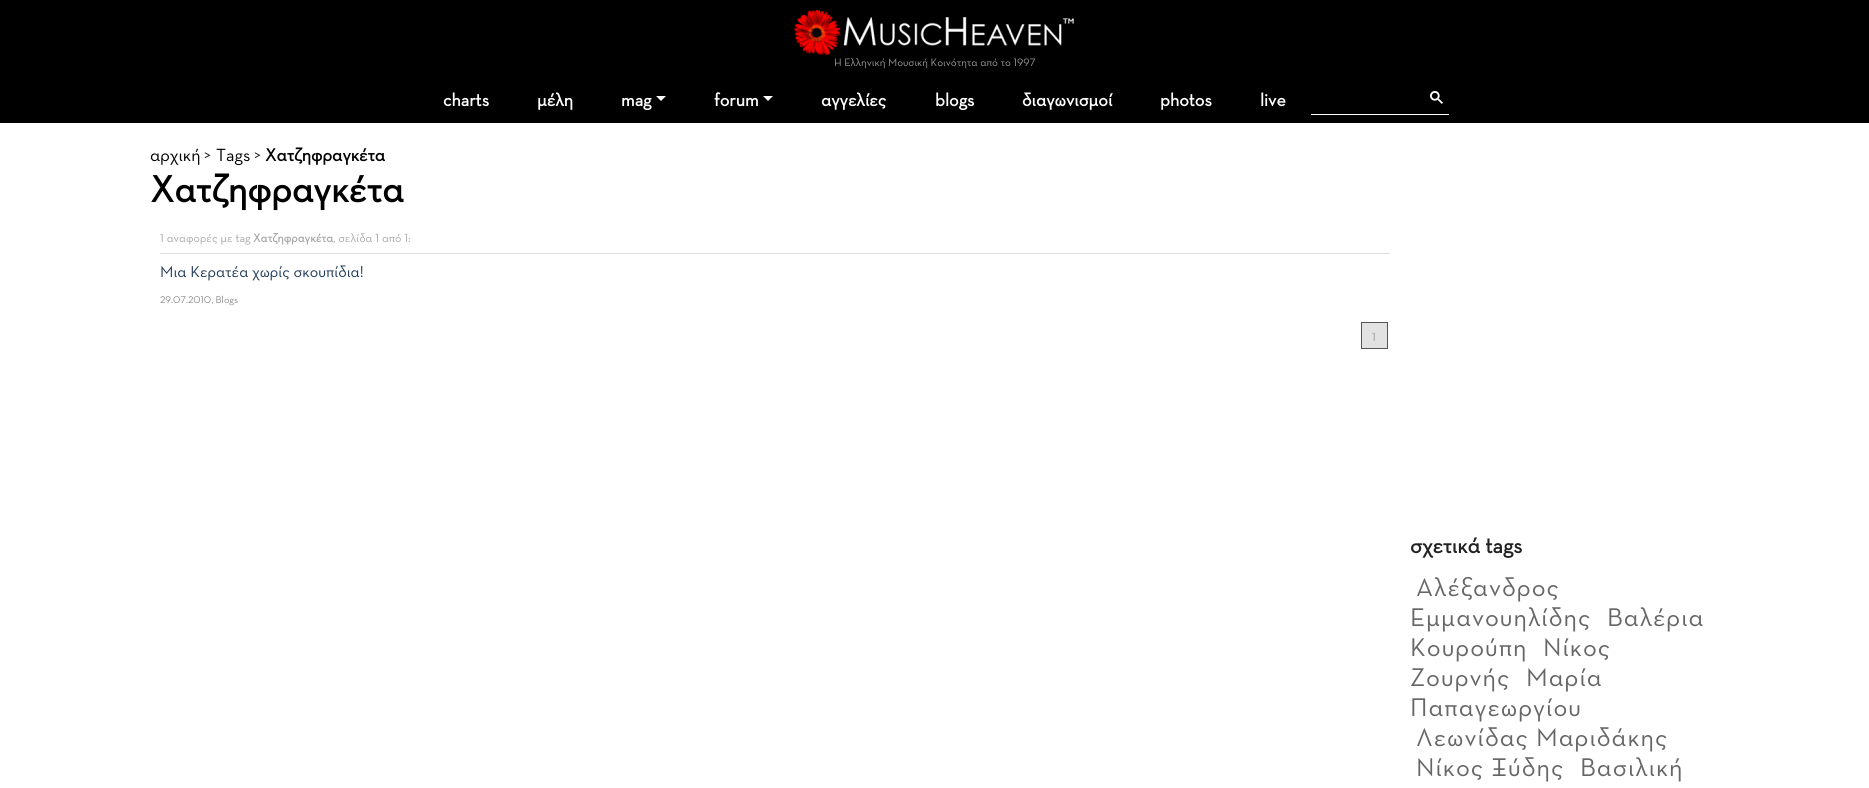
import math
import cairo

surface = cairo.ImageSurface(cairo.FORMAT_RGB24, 1869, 788)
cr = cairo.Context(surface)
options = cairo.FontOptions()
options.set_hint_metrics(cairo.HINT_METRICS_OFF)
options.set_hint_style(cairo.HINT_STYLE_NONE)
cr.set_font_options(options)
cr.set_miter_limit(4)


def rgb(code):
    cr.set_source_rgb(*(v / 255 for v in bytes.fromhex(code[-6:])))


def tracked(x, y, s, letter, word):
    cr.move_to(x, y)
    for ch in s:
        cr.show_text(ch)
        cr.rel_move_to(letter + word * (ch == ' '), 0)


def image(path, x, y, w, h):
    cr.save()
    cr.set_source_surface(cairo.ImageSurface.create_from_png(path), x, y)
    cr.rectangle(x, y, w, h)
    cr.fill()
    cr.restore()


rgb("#ffffff")
cr.paint()
rgb("#000000")
cr.rectangle(0, 0, 1869, 123)
cr.fill()
image("img/1.png", 794, 10, 280, 45)
rgb("#ffffff")
cr.new_path()
cr.move_to(656, 96)
cr.line_to(666, 96)
cr.line_to(661, 101)
cr.close_path()
cr.fill()
cr.new_path()
cr.move_to(763, 96)
cr.line_to(773, 96)
cr.line_to(768, 101)
cr.close_path()
cr.fill()
cr.rectangle(1311, 114, 138, 1)
cr.fill()
image("img/2.png", 1430, 91, 13, 13)
rgb("#dddddd")
cr.rectangle(160, 253, 1230, 1)
cr.fill()
rgb("#e2e2e2")
cr.rectangle(1361.5, 322.5, 26, 26)
cr.fill_preserve()
rgb("#555555")
cr.set_line_width(1)
cr.stroke()
cr.select_font_face("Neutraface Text")
cr.set_font_size(11)
rgb("#999999")
cr.move_to(834, 66)
cr.show_text("Η Ελληνική Μουσική Κοινότητα από το 1997")
cr.select_font_face("Neutraface Text", cairo.FONT_SLANT_NORMAL, cairo.FONT_WEIGHT_BOLD)
cr.set_font_size(18)
rgb("#ffffff")
for x, y, s in [
    (443, 106, "charts"),
    (537, 106, "μέλη"),
    (621, 106, "mag"),
    (714, 106, "forum"),
    (821, 106, "αγγελίες"),
    (935, 106, "blogs"),
    (1022, 106, "διαγωνισμοί"),
    (1160, 106, "photos"),
    (1260, 106, "live"),
]:
    cr.move_to(x, y)
    cr.show_text(s)
cr.select_font_face("Neutraface Text")
rgb("#000000")
cr.move_to(150, 161)
cr.show_text("αρχική")
rgb("#212529")
cr.move_to(204, 161)
cr.show_text(">")
rgb("#000000")
cr.move_to(216, 161)
cr.show_text("Tags")
rgb("#212529")
cr.move_to(254, 161)
cr.show_text(">")
cr.select_font_face("Neutraface Text", cairo.FONT_SLANT_NORMAL, cairo.FONT_WEIGHT_BOLD)
rgb("#000000")
cr.move_to(265, 161)
cr.show_text("Χατζηφραγκέτα")
cr.set_font_size(38)
cr.move_to(150, 202)
cr.show_text("Χατζηφραγκέτα")
cr.select_font_face("Neutraface Text")
cr.set_font_size(12)
rgb("#aaaaaa")
cr.move_to(160, 242)
cr.show_text("1 αναφορές με tag")
cr.select_font_face("Neutraface Text", cairo.FONT_SLANT_NORMAL, cairo.FONT_WEIGHT_BOLD)
cr.move_to(253, 242)
cr.show_text("Χατζηφραγκέτα")
cr.select_font_face("Neutraface Text")
cr.move_to(333, 242)
cr.show_text(", σελίδα 1 από 1:")
cr.set_font_size(16)
rgb("#1f3a57")
cr.move_to(160, 277)
cr.show_text("Μια Κερατέα χωρίς σκουπίδια!")
cr.set_font_size(10)
rgb("#888888")
cr.move_to(160, 303)
cr.show_text("29.07.2010, Blogs")
cr.set_font_size(12)
rgb("#999999")
cr.move_to(1372, 341)
cr.show_text("1")
cr.select_font_face("Neutraface Text", cairo.FONT_SLANT_NORMAL, cairo.FONT_WEIGHT_BOLD)
cr.set_font_size(22)
rgb("#222222")
cr.move_to(1410, 553)
cr.show_text("σχετικά tags")
cr.select_font_face("Neutraface Text")
cr.set_font_size(26)
rgb("#666666")
for x, y, s in [
    (1416, 596, "Αλέξανδρος"),
    (1410, 626, "Εμμανουηλίδης"),
    (1607, 626, "Βαλέρια"),
    (1410, 656, "Κουρούπη"),
    (1543, 656, "Νίκος"),
    (1410, 686, "Ζουρνής"),
    (1526, 686, "Μαρία"),
    (1410, 716, "Παπαγεωργίου"),
    (1416, 746, "Λεωνίδας Μαριδάκης"),
    (1416, 776, "Νίκος Ξύδης"),
    (1580, 776, "Βασιλική"),
]:
    tracked(x, y, s, 1, 0)
surface.write_to_png("page.png")
